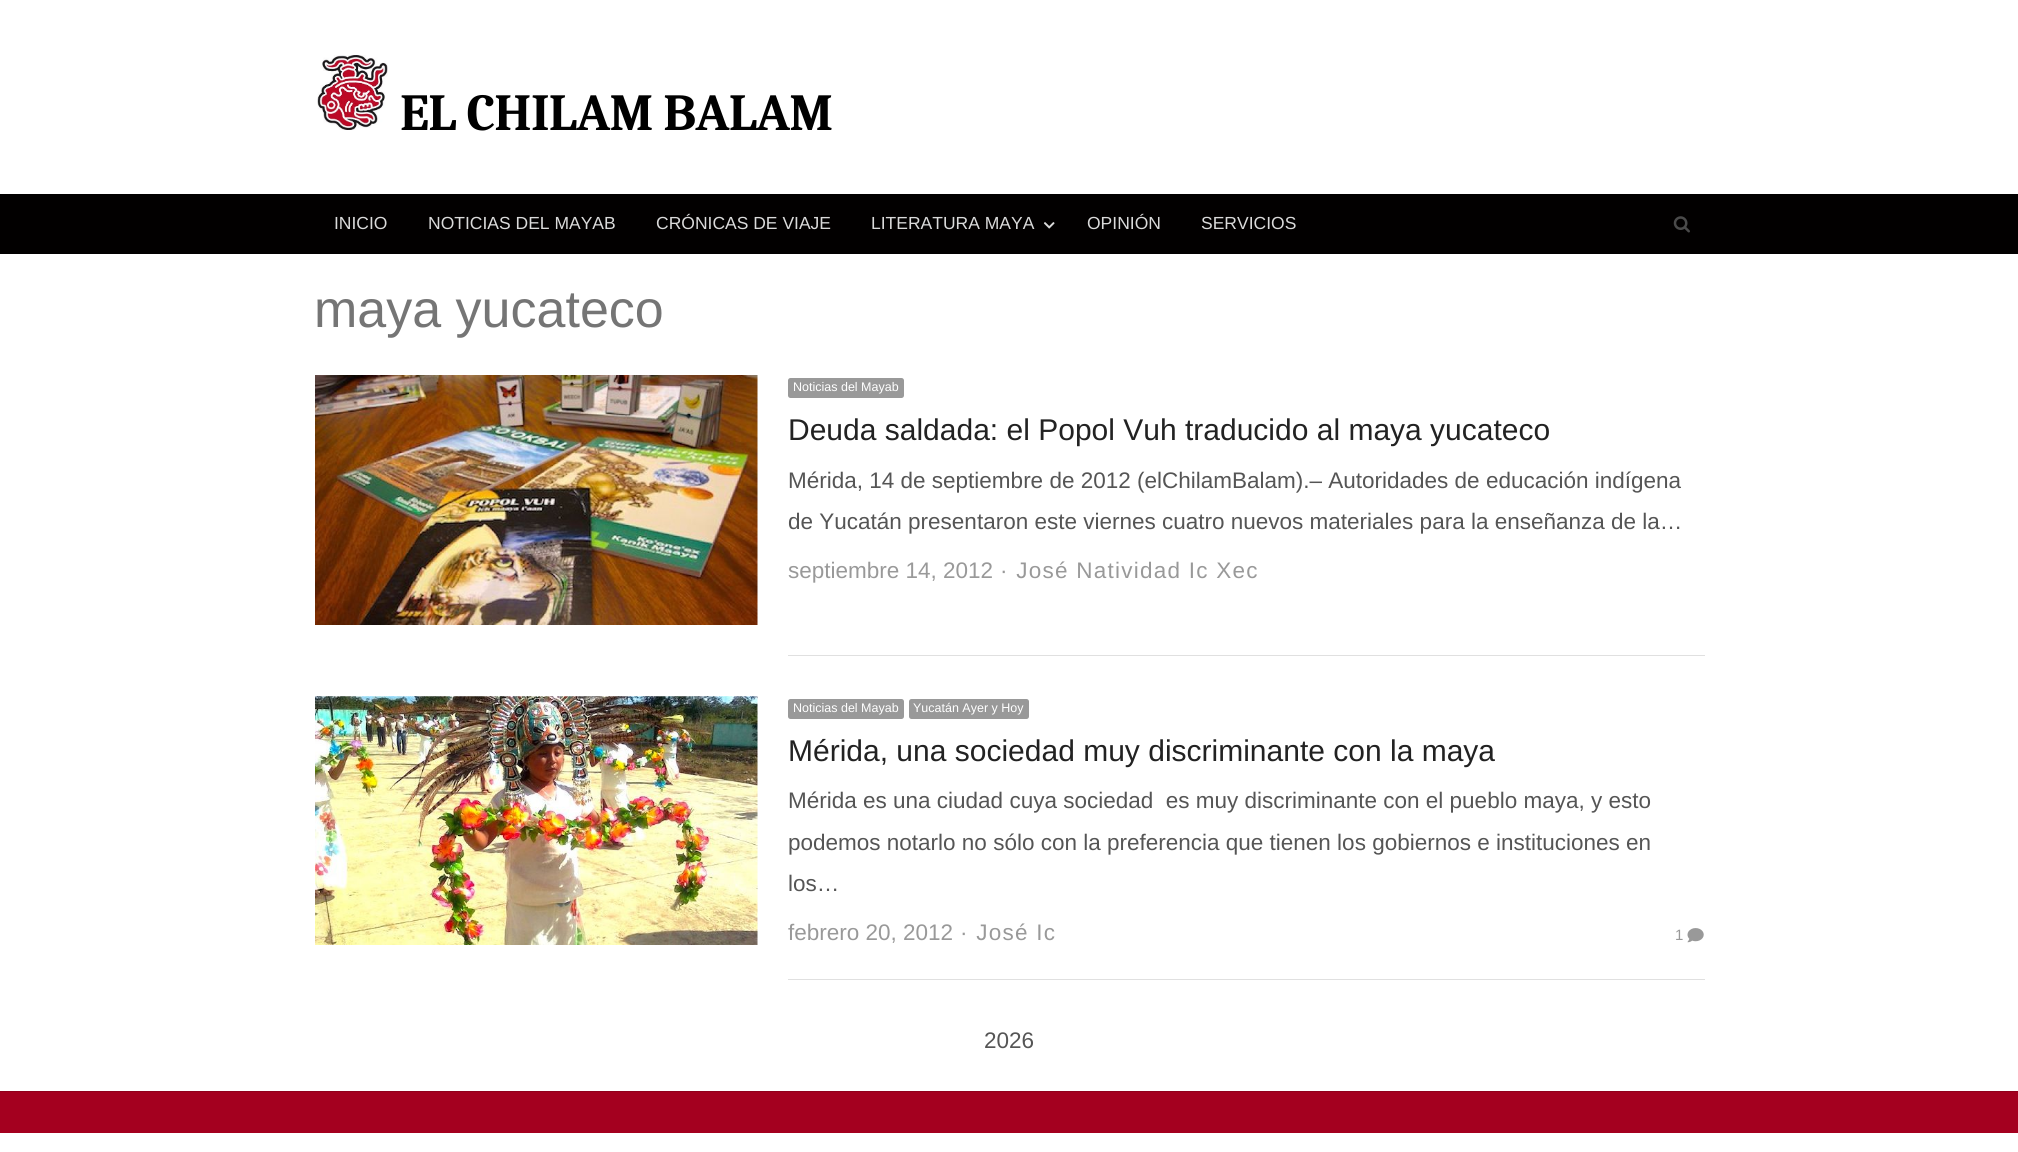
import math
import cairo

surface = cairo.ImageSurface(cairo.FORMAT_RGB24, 2018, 1152)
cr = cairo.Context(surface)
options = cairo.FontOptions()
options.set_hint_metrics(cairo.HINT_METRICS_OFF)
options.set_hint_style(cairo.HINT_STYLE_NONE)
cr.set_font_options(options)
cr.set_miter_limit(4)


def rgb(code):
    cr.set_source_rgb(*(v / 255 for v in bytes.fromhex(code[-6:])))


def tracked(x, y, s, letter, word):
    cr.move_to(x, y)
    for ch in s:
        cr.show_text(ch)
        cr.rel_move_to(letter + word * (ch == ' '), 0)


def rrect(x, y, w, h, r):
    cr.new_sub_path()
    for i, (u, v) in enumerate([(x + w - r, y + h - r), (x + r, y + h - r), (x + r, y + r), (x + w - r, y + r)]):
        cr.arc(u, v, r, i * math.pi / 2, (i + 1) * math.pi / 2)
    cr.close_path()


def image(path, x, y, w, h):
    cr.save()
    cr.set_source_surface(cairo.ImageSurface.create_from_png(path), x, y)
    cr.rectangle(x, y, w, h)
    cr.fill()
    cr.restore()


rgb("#ffffff")
cr.paint()
image("img/1.png", 317, 55, 71, 75)
rgb("#020000")
cr.rectangle(0, 194, 2018, 60)
cr.fill()
image("img/2.png", 1043, 222, 12, 7)
image("img/3.png", 1673, 216, 17, 17)
image("img/4.png", 315, 375, 443, 250)
rgb("#999999")
rrect(788, 378, 116, 20, 2.5)
cr.fill()
rgb("#e0e0e0")
cr.rectangle(788, 655, 917, 1)
cr.fill()
image("img/5.png", 315, 696, 443, 249)
rgb("#999999")
rrect(788, 699, 116, 20, 2.5)
cr.fill()
rrect(909, 699, 120, 20, 2.5)
cr.fill()
image("img/6.png", 1687, 928, 17, 15)
for x, y, w, h, color in [
    (788, 979, 917, 1, "#e0e0e0"),
    (0, 1092, 2018, 41, "#a4001f"),
    (0, 1091, 2018, 1, "#90001b"),
]:
    rgb(color)
    cr.rectangle(x, y, w, h)
    cr.fill()
cr.select_font_face("Caladea", cairo.FONT_SLANT_NORMAL, cairo.FONT_WEIGHT_BOLD)
cr.set_font_size(52)
rgb("#000000")
tracked(400, 130, "EL CHILAM BALAM", -0.75, 0)
cr.select_font_face("Liberation Sans")
cr.set_font_size(17.5)
rgb("#dadada")
for x, y, s in [
    (334, 229, "INICIO"),
    (428, 229, "NOTICIAS DEL MAYAB"),
    (656, 229, "CRÓNICAS DE VIAJE"),
    (871, 229, "LITERATURA MAYA"),
    (1087, 229, "OPINIÓN"),
    (1201, 229, "SERVICIOS"),
]:
    cr.move_to(x, y)
    cr.show_text(s)
cr.set_font_size(52)
rgb("#757575")
cr.move_to(314, 327)
cr.show_text("maya yucateco")
cr.set_font_size(12.5)
rgb("#ffffff")
cr.move_to(793, 391)
cr.show_text("Noticias del Mayab")
cr.set_font_size(30)
rgb("#222222")
cr.move_to(788, 440)
cr.show_text("Deuda saldada: el Popol Vuh traducido al maya yucateco")
cr.set_font_size(22.5)
rgb("#555555")
cr.move_to(788, 488)
cr.show_text("Mérida, 14 de septiembre de 2012 (elChilamBalam).– Autoridades de educación indígena")
cr.move_to(788, 529)
cr.show_text("de Yucatán presentaron este viernes cuatro nuevos materiales para la enseñanza de la…")
rgb("#999999")
cr.move_to(788, 578)
cr.show_text("septiembre 14, 2012")
tracked(1000, 578, "· José Natividad Ic Xec", 1.25, 0)
cr.set_font_size(12.5)
rgb("#ffffff")
cr.move_to(793, 712)
cr.show_text("Noticias del Mayab")
cr.move_to(913, 712)
cr.show_text("Yucatán Ayer y Hoy")
cr.set_font_size(30)
rgb("#222222")
cr.move_to(788, 761)
cr.show_text("Mérida, una sociedad muy discriminante con la maya")
cr.set_font_size(22.5)
rgb("#555555")
for x, y, s in [
    (788, 808, "Mérida es una ciudad cuya sociedad  es muy discriminante con el pueblo maya, y esto"),
    (788, 850, "podemos notarlo no sólo con la preferencia que tienen los gobiernos e instituciones en"),
    (788, 891, "los…"),
]:
    cr.move_to(x, y)
    cr.show_text(s)
rgb("#999999")
cr.move_to(788, 940)
cr.show_text("febrero 20, 2012")
tracked(960, 940, "· José Ic", 1.25, 0)
cr.set_font_size(15)
cr.move_to(1675, 940)
cr.show_text("1")
cr.set_font_size(22.5)
rgb("#555555")
cr.move_to(984, 1048)
cr.show_text("2026")
surface.write_to_png("page.png")
